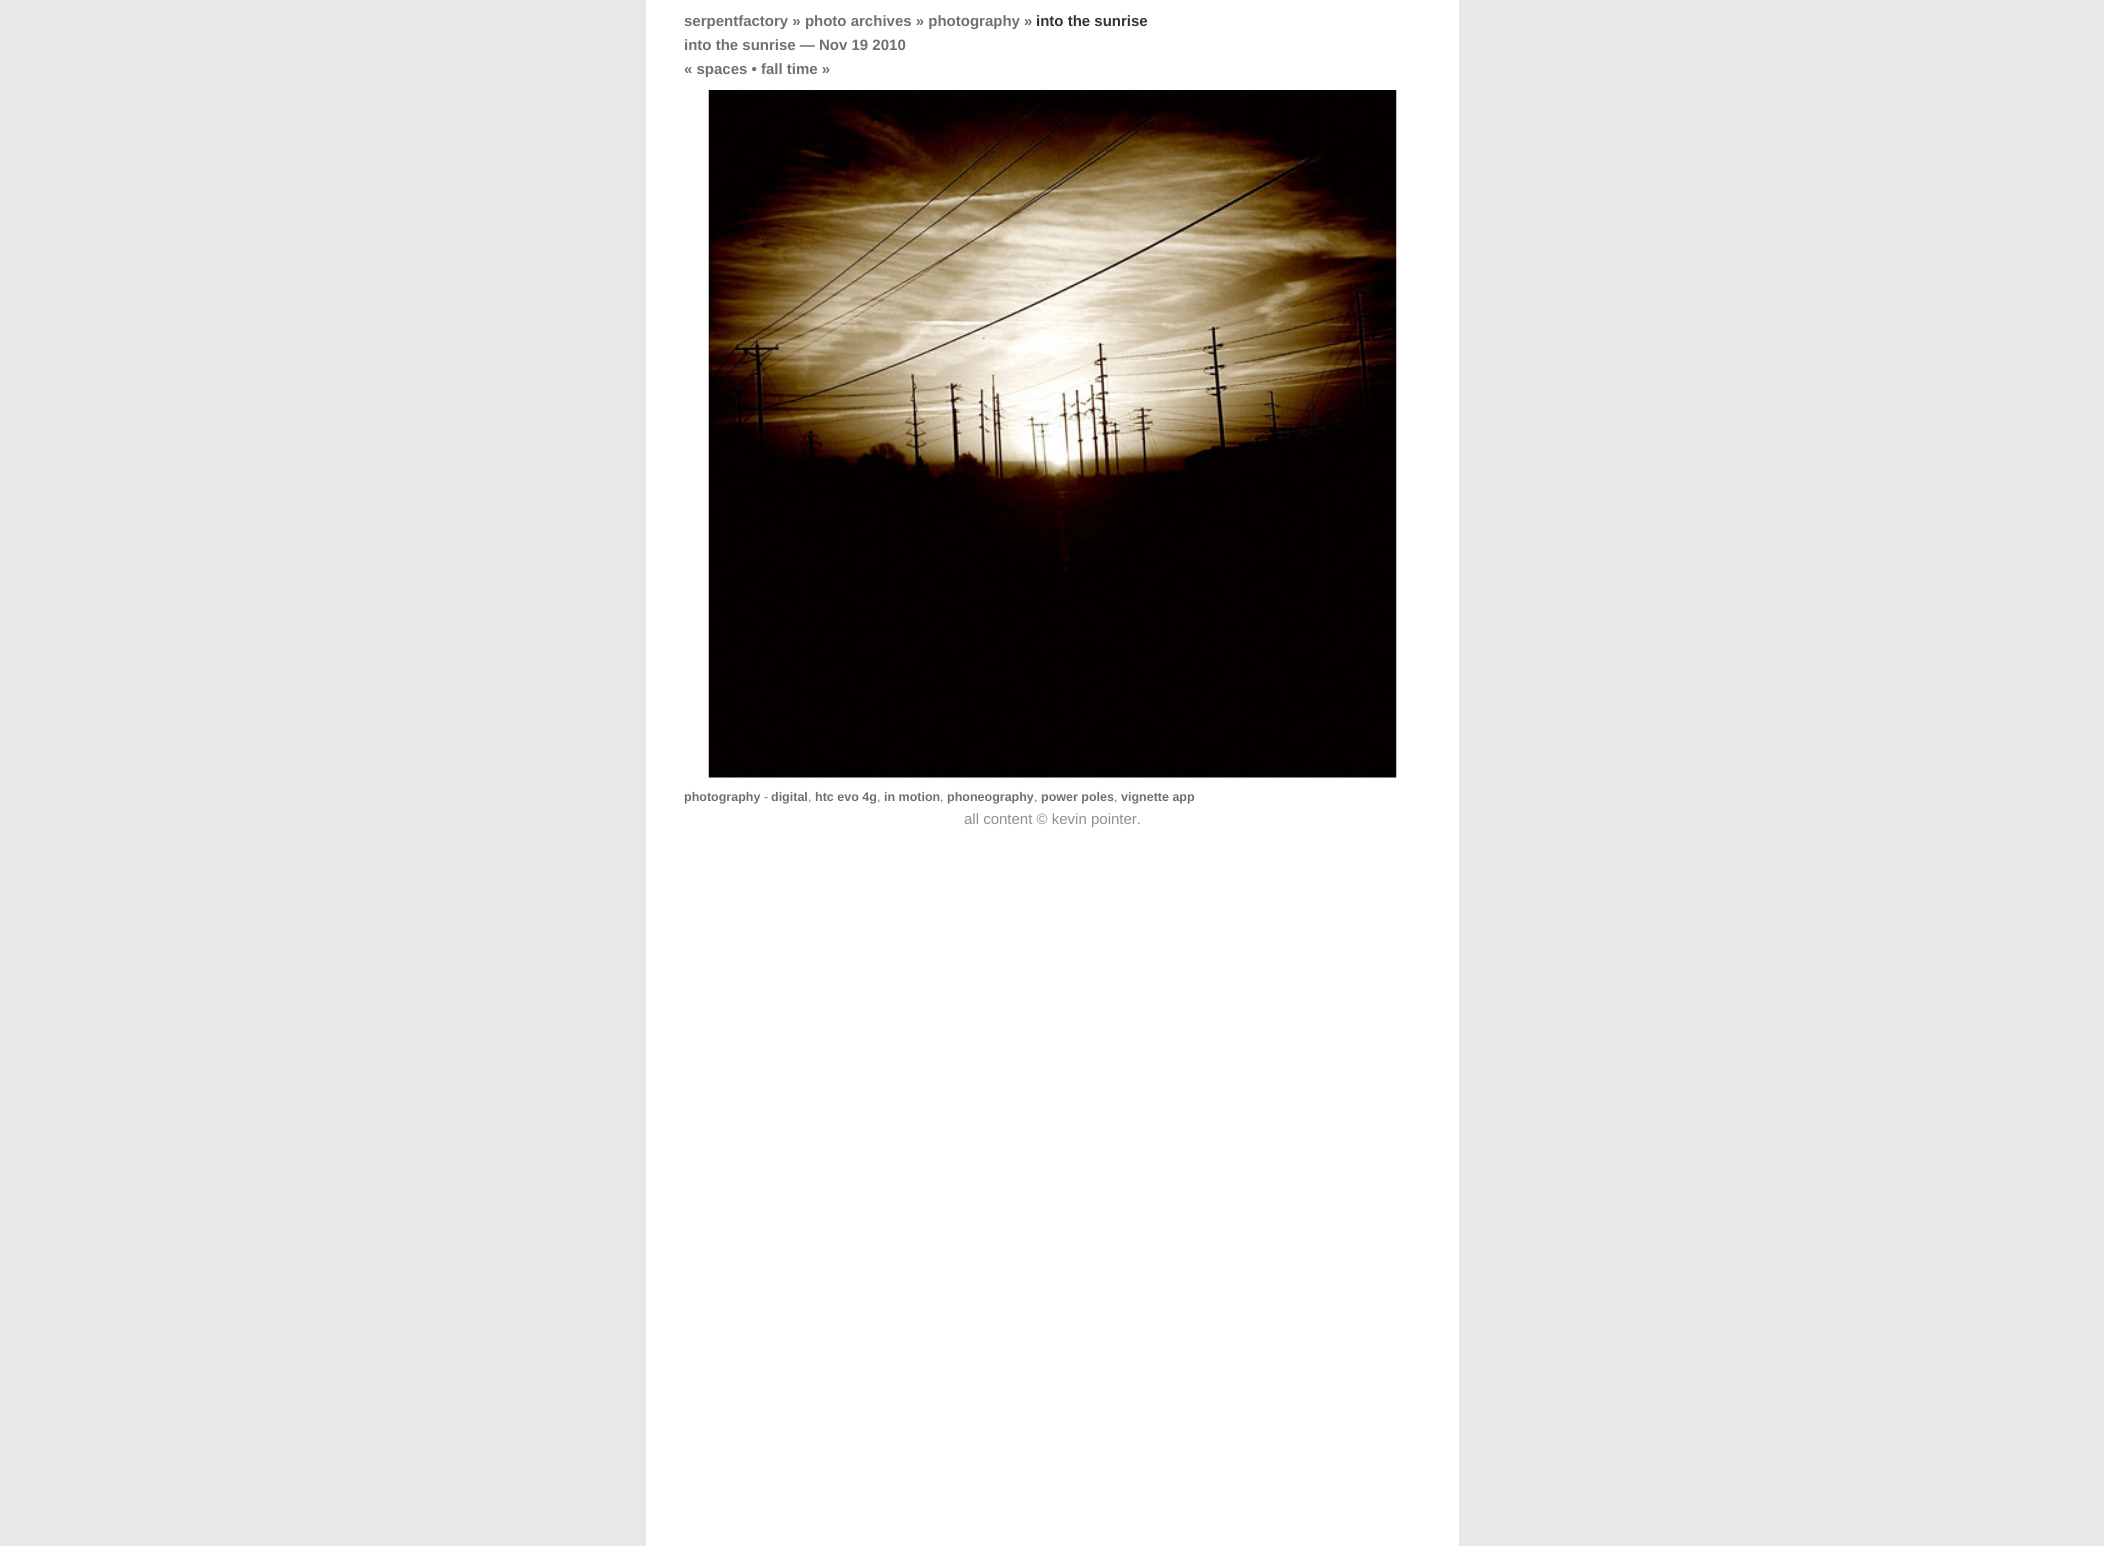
import math
import cairo

surface = cairo.ImageSurface(cairo.FORMAT_RGB24, 2104, 1546)
cr = cairo.Context(surface)
options = cairo.FontOptions()
options.set_hint_metrics(cairo.HINT_METRICS_OFF)
options.set_hint_style(cairo.HINT_STYLE_NONE)
cr.set_font_options(options)
cr.set_miter_limit(4)


def rgb(code):
    cr.set_source_rgb(*(v / 255 for v in bytes.fromhex(code[-6:])))


def image(path, x, y, w, h):
    cr.save()
    cr.set_source_surface(cairo.ImageSurface.create_from_png(path), x, y)
    cr.rectangle(x, y, w, h)
    cr.fill()
    cr.restore()


rgb("#e8e8e8")
cr.paint()
rgb("#ffffff")
cr.rectangle(646, 0, 813, 1546)
cr.fill()
image("img/1.png", 708, 90, 689, 688)
cr.select_font_face("Liberation Sans", cairo.FONT_SLANT_NORMAL, cairo.FONT_WEIGHT_BOLD)
cr.set_font_size(15)
rgb("#707070")
cr.move_to(684, 26)
cr.show_text("serpentfactory » photo archives » photography »")
rgb("#333333")
cr.move_to(1036, 26)
cr.show_text("into the sunrise")
rgb("#707070")
cr.move_to(684, 50)
cr.show_text("into the sunrise — Nov 19 2010")
cr.move_to(684, 74)
cr.show_text("« spaces • fall time »")
cr.set_font_size(12.5)
cr.move_to(684, 801)
cr.show_text("photography")
cr.select_font_face("Liberation Sans")
cr.move_to(764, 801)
cr.show_text("-")
cr.select_font_face("Liberation Sans", cairo.FONT_SLANT_NORMAL, cairo.FONT_WEIGHT_BOLD)
for x, y, s in [
    (771, 801, "digital"),
    (815, 801, "htc evo 4g"),
    (884, 801, "in motion"),
    (947, 801, "phoneography"),
    (1041, 801, "power poles"),
    (1121, 801, "vignette app"),
]:
    cr.move_to(x, y)
    cr.show_text(s)
cr.select_font_face("Liberation Sans")
for x, y, s in [
    (808, 801, ","),
    (877, 801, ","),
    (940, 801, ","),
    (1034, 801, ","),
    (1114, 801, ","),
]:
    cr.move_to(x, y)
    cr.show_text(s)
cr.set_font_size(15)
rgb("#909090")
cr.move_to(964, 824)
cr.show_text("all content © kevin pointer.")
surface.write_to_png("page.png")
